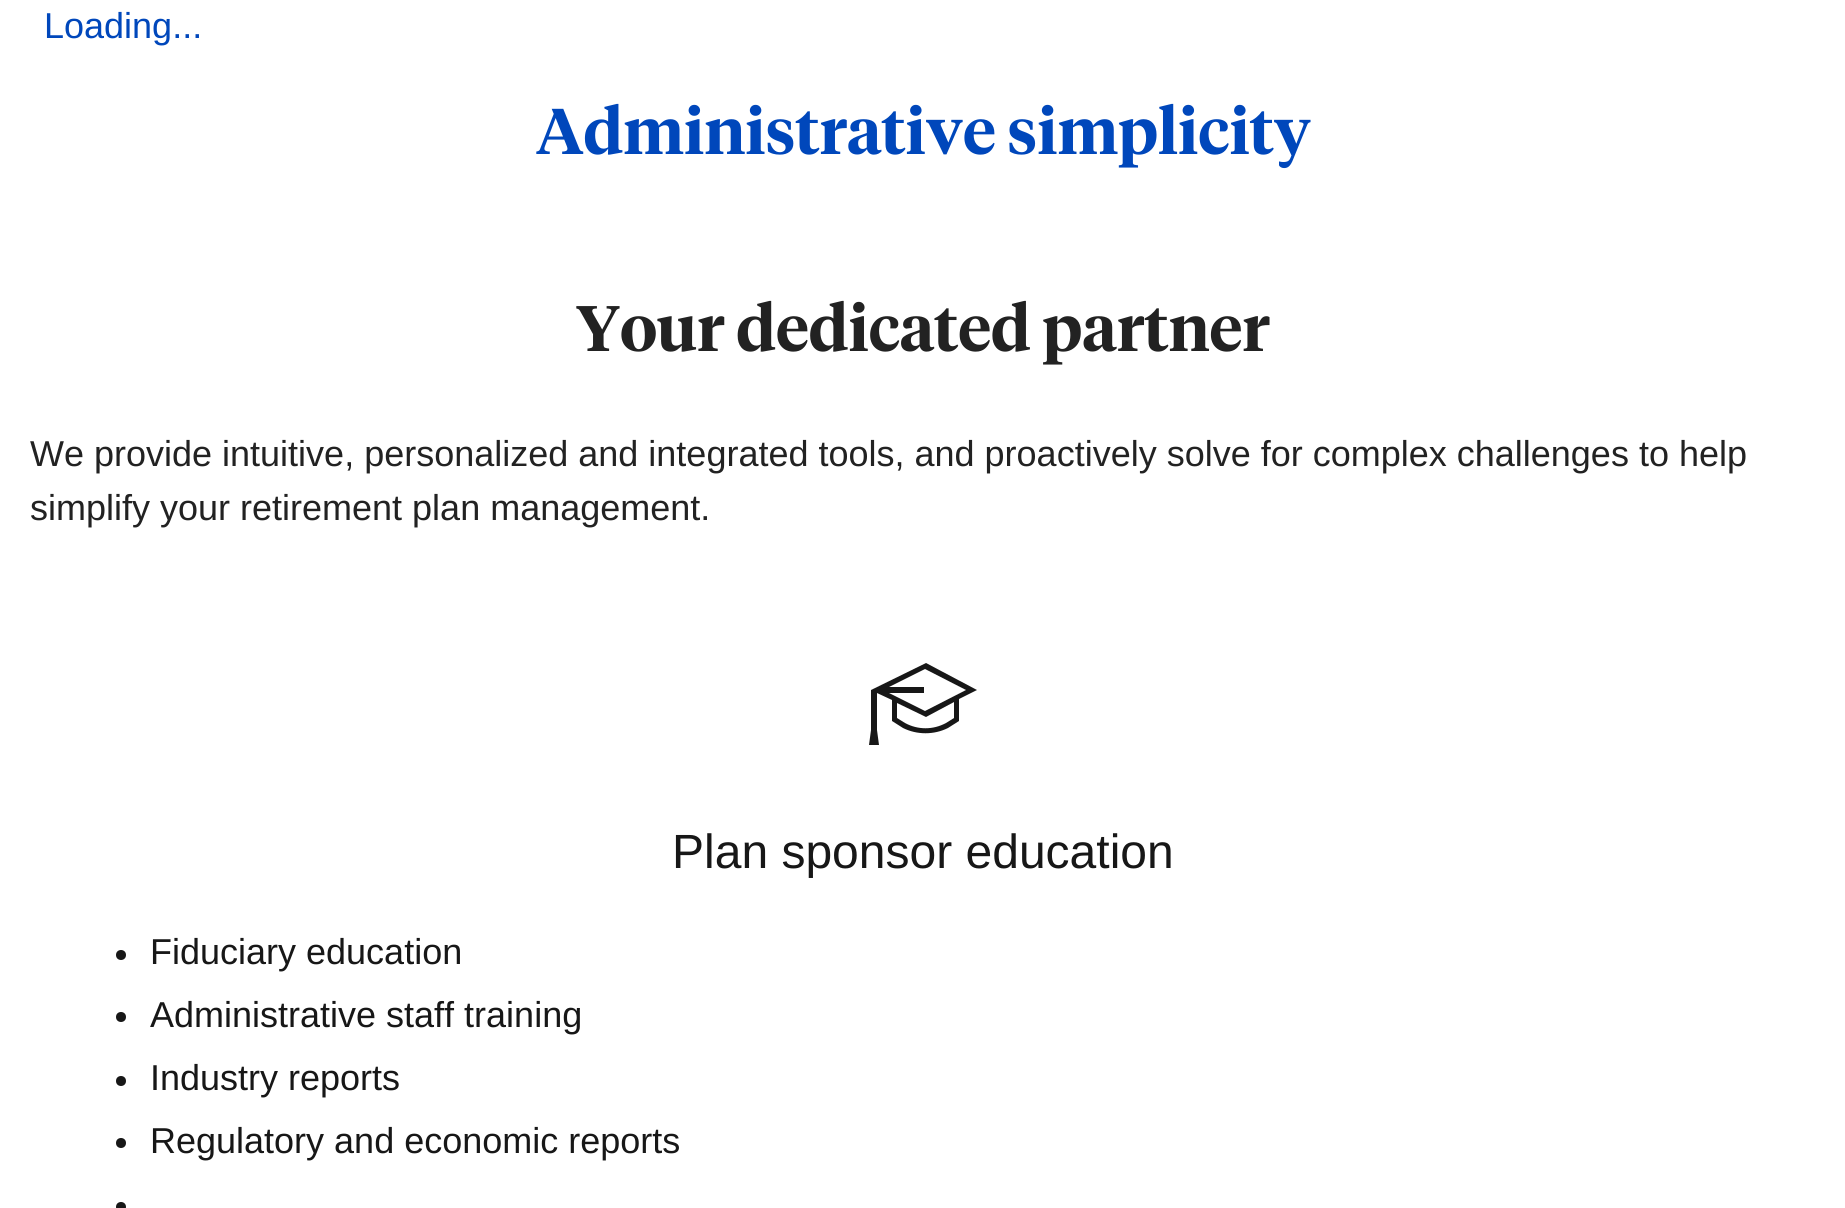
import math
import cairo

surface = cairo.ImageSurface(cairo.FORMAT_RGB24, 1845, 1208)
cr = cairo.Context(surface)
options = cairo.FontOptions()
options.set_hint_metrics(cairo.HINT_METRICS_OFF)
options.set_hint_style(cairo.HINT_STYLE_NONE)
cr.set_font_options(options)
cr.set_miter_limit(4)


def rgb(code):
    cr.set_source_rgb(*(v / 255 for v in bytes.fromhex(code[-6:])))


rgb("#ffffff")
cr.paint()
rgb("#171717")
cr.new_path()
cr.move_to(977, 690)
cr.line_to(926, 663)
cr.line_to(871, 690)
cr.line_to(871, 730)
cr.line_to(869, 745)
cr.line_to(879, 745)
cr.line_to(877, 730)
cr.line_to(877, 693)
cr.line_to(892, 700)
cr.line_to(892, 721)
cr.line_to(903, 728)
cr.curve_to(917, 735, 934, 735, 948, 728)
cr.line_to(959, 721)
cr.line_to(959, 699)
cr.close_path()
cr.move_to(966, 690)
cr.line_to(925, 711)
cr.line_to(889, 693)
cr.line_to(924, 693)
cr.line_to(924, 687)
cr.line_to(889, 687)
cr.line_to(925, 669)
cr.close_path()
cr.move_to(954, 718)
cr.line_to(946, 723)
cr.curve_to(933, 730, 918, 730, 905, 723)
cr.line_to(897, 718)
cr.line_to(897, 703)
cr.line_to(926, 717)
cr.line_to(954, 702)
cr.close_path()
cr.fill()
cr.arc(121, 955, 5, 0, 2 * math.pi)
cr.fill()
cr.arc(121, 1017, 5, 0, 2 * math.pi)
cr.fill()
cr.arc(121, 1081, 5, 0, 2 * math.pi)
cr.fill()
cr.arc(121, 1143, 5, 0, 2 * math.pi)
cr.fill()
cr.arc(121, 1207, 5, 0, 2 * math.pi)
cr.fill()
cr.select_font_face("Liberation Sans")
cr.set_font_size(36)
rgb("#0047bb")
cr.move_to(44, 38)
cr.show_text("Loading...")
cr.select_font_face("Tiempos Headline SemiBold")
cr.set_font_size(64)
cr.move_to(536, 154)
cr.show_text("Administrative simplicity")
rgb("#222222")
cr.move_to(576, 351)
cr.show_text("Your dedicated partner")
cr.select_font_face("Liberation Sans")
cr.set_font_size(36)
cr.move_to(30, 466)
cr.show_text("We provide intuitive, personalized and integrated tools, and proactively solve for complex challenges to help")
cr.move_to(30, 520)
cr.show_text("simplify your retirement plan management.")
cr.set_font_size(48)
rgb("#171717")
cr.move_to(672, 868)
cr.show_text("Plan sponsor education")
cr.set_font_size(36)
for x, y, s in [
    (150, 964, "Fiduciary education"),
    (150, 1027, "Administrative staff training"),
    (150, 1090, "Industry reports"),
    (150, 1153, "Regulatory and economic reports"),
]:
    cr.move_to(x, y)
    cr.show_text(s)
surface.write_to_png("page.png")
